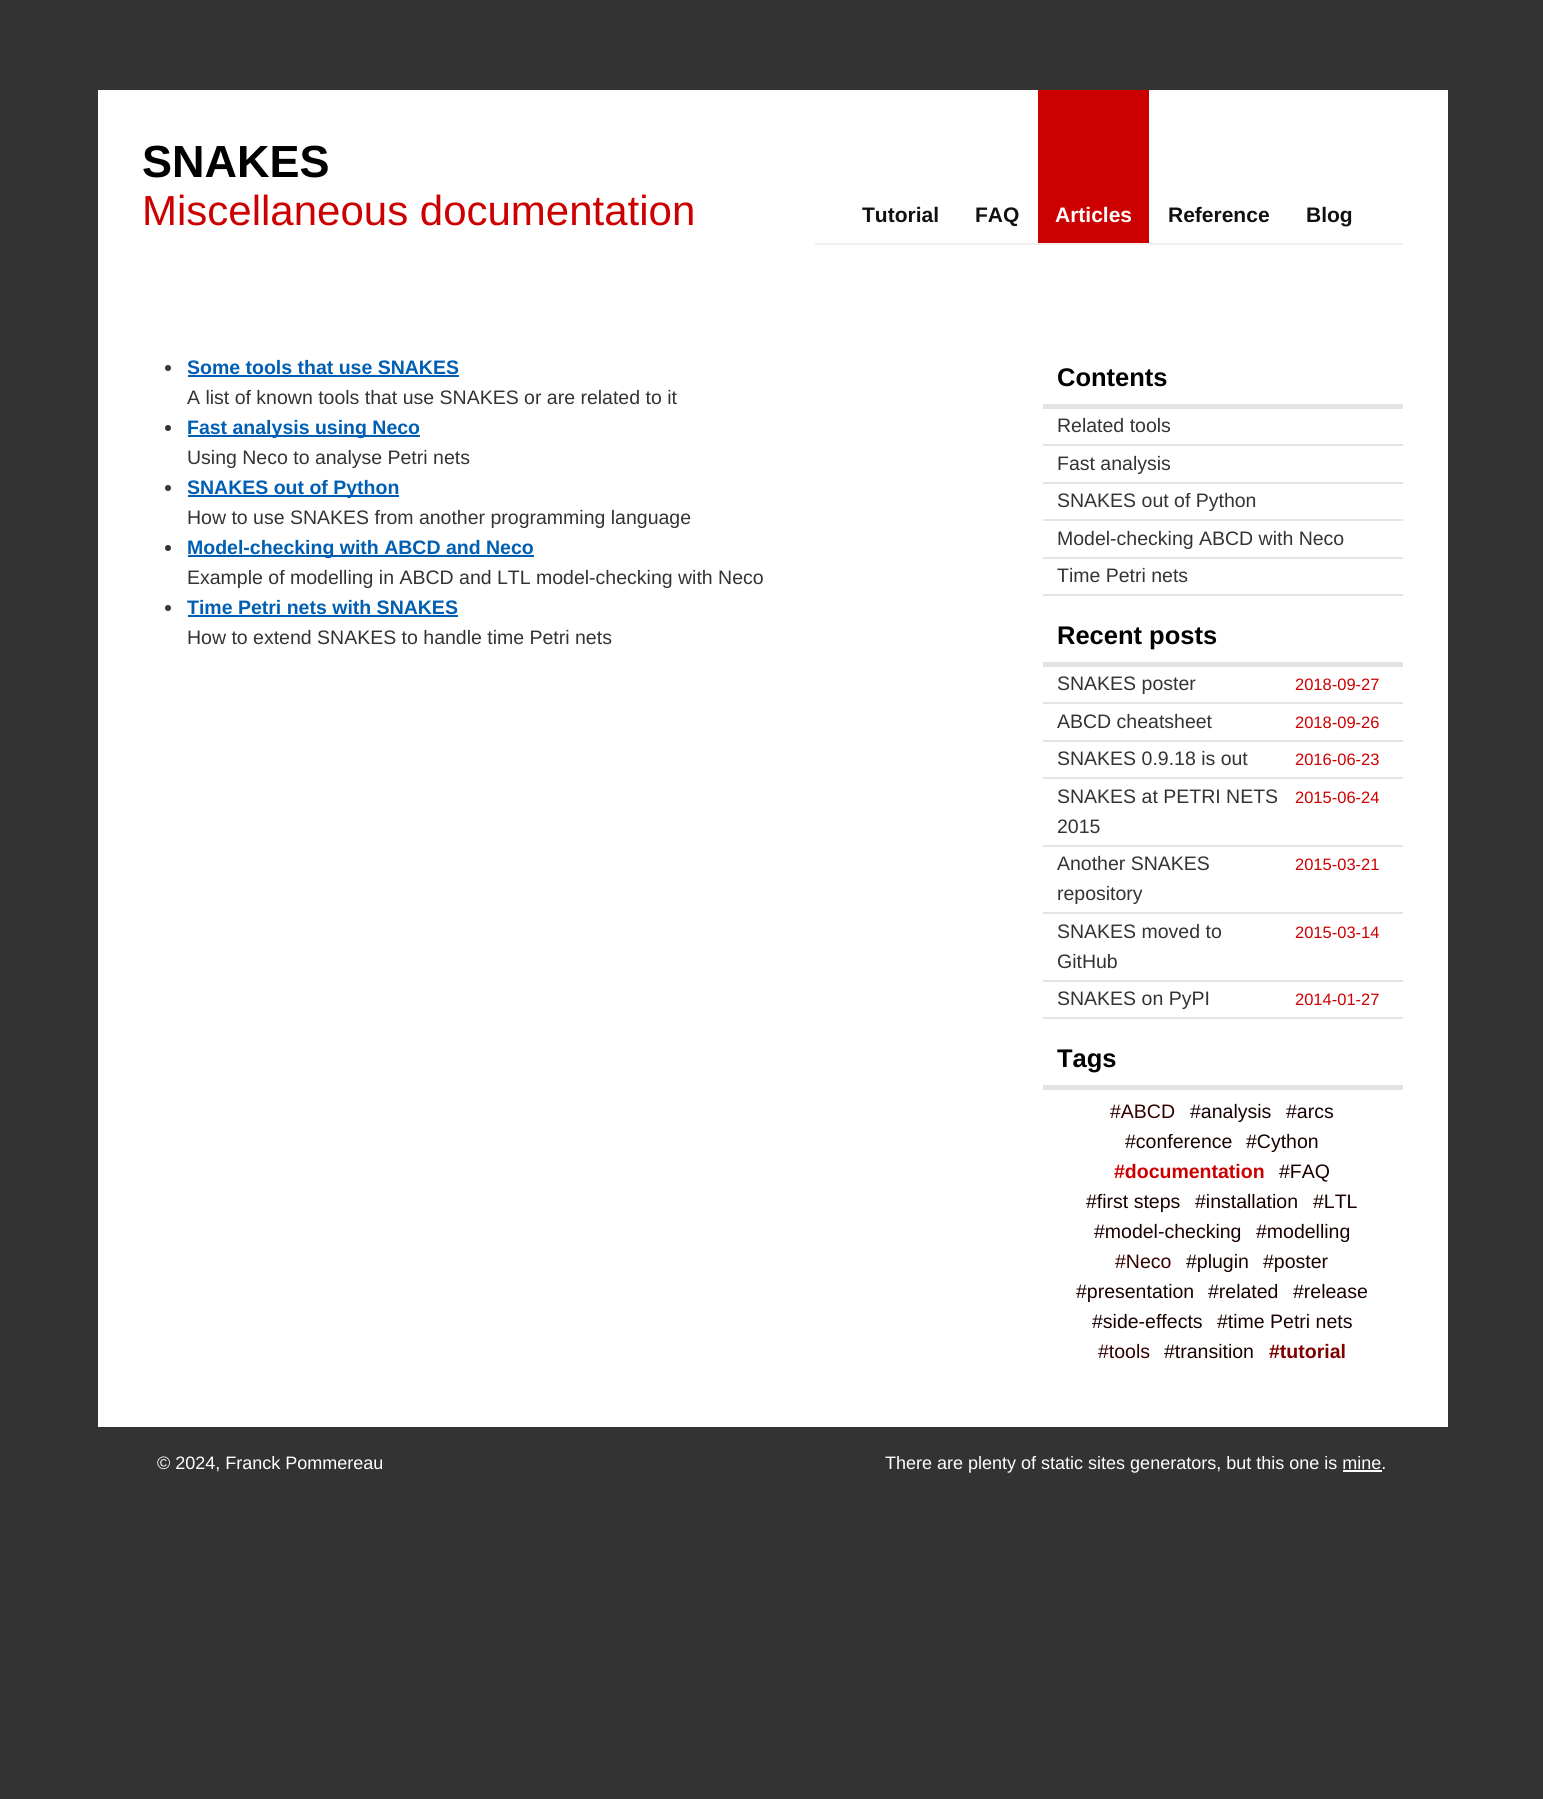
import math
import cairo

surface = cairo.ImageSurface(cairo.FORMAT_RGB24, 1543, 1799)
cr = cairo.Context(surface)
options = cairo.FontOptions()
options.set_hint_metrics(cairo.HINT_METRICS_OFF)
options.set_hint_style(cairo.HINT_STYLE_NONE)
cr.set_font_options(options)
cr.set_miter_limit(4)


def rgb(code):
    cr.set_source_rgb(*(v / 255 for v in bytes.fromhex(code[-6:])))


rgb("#333333")
cr.paint()
for x, y, w, h, color in [
    (98, 90, 1350, 1337, "#ffffff"),
    (815, 243, 588, 2, "#efefef"),
    (1038, 90, 111, 153, "#cc0000"),
]:
    rgb(color)
    cr.rectangle(x, y, w, h)
    cr.fill()
rgb("#333333")
cr.arc(168, 368, 3, 0, 2 * math.pi)
cr.fill()
rgb("#005eb3")
cr.rectangle(188, 375, 271, 2)
cr.fill()
rgb("#333333")
cr.arc(168, 428, 3, 0, 2 * math.pi)
cr.fill()
rgb("#005eb3")
cr.rectangle(188, 435, 232, 2)
cr.fill()
rgb("#333333")
cr.arc(168, 488, 3, 0, 2 * math.pi)
cr.fill()
rgb("#005eb3")
cr.rectangle(188, 495, 211, 2)
cr.fill()
rgb("#333333")
cr.arc(168, 548, 3, 0, 2 * math.pi)
cr.fill()
rgb("#005eb3")
cr.rectangle(188, 555, 346, 2)
cr.fill()
rgb("#333333")
cr.arc(168, 608, 3, 0, 2 * math.pi)
cr.fill()
for x, y, w, h, color in [
    (188, 615, 270, 2, "#005eb3"),
    (1043, 404, 360, 5, "#e3e3e3"),
    (1043, 444, 360, 2, "#e5e5e5"),
    (1043, 482, 360, 2, "#e5e5e5"),
    (1043, 519, 360, 2, "#e5e5e5"),
    (1043, 557, 360, 2, "#e5e5e5"),
    (1043, 594, 360, 2, "#e5e5e5"),
    (1043, 662, 360, 5, "#e3e3e3"),
    (1043, 702, 360, 2, "#e5e5e5"),
    (1043, 740, 360, 2, "#e5e5e5"),
    (1043, 777, 360, 2, "#e5e5e5"),
    (1043, 845, 360, 2, "#e5e5e5"),
    (1043, 912, 360, 2, "#e5e5e5"),
    (1043, 980, 360, 2, "#e5e5e5"),
    (1043, 1017, 360, 2, "#e5e5e5"),
    (1043, 1085, 360, 5, "#e3e3e3"),
    (1343, 1470, 39, 2, "#ffffff"),
]:
    rgb(color)
    cr.rectangle(x, y, w, h)
    cr.fill()
cr.select_font_face("Liberation Sans", cairo.FONT_SLANT_NORMAL, cairo.FONT_WEIGHT_BOLD)
cr.set_font_size(45)
rgb("#000000")
cr.move_to(142, 177)
cr.show_text("SNAKES")
cr.select_font_face("Liberation Sans")
cr.set_font_size(42)
rgb("#cc0000")
cr.move_to(142, 225)
cr.show_text("Miscellaneous documentation")
cr.select_font_face("Liberation Sans", cairo.FONT_SLANT_NORMAL, cairo.FONT_WEIGHT_BOLD)
cr.set_font_size(21)
rgb("#111111")
cr.move_to(862, 222)
cr.show_text("Tutorial")
cr.move_to(975, 222)
cr.show_text("FAQ")
rgb("#ffffff")
cr.move_to(1055, 222)
cr.show_text("Articles")
rgb("#111111")
cr.move_to(1168, 222)
cr.show_text("Reference")
cr.move_to(1306, 222)
cr.show_text("Blog")
cr.set_font_size(19.5)
rgb("#005eb3")
cr.move_to(187, 374)
cr.show_text("Some tools that use SNAKES")
cr.select_font_face("Liberation Sans")
rgb("#333333")
cr.move_to(187, 404)
cr.show_text("A list of known tools that use SNAKES or are related to it")
cr.select_font_face("Liberation Sans", cairo.FONT_SLANT_NORMAL, cairo.FONT_WEIGHT_BOLD)
rgb("#005eb3")
cr.move_to(187, 434)
cr.show_text("Fast analysis using Neco")
cr.select_font_face("Liberation Sans")
rgb("#333333")
cr.move_to(187, 464)
cr.show_text("Using Neco to analyse Petri nets")
cr.select_font_face("Liberation Sans", cairo.FONT_SLANT_NORMAL, cairo.FONT_WEIGHT_BOLD)
rgb("#005eb3")
cr.move_to(187, 494)
cr.show_text("SNAKES out of Python")
cr.select_font_face("Liberation Sans")
rgb("#333333")
cr.move_to(187, 524)
cr.show_text("How to use SNAKES from another programming language")
cr.select_font_face("Liberation Sans", cairo.FONT_SLANT_NORMAL, cairo.FONT_WEIGHT_BOLD)
rgb("#005eb3")
cr.move_to(187, 554)
cr.show_text("Model-checking with ABCD and Neco")
cr.select_font_face("Liberation Sans")
rgb("#333333")
cr.move_to(187, 584)
cr.show_text("Example of modelling in ABCD and LTL model-checking with Neco")
cr.select_font_face("Liberation Sans", cairo.FONT_SLANT_NORMAL, cairo.FONT_WEIGHT_BOLD)
rgb("#005eb3")
cr.move_to(187, 614)
cr.show_text("Time Petri nets with SNAKES")
cr.select_font_face("Liberation Sans")
rgb("#333333")
cr.move_to(187, 644)
cr.show_text("How to extend SNAKES to handle time Petri nets")
cr.select_font_face("Liberation Sans", cairo.FONT_SLANT_NORMAL, cairo.FONT_WEIGHT_BOLD)
cr.set_font_size(25.5)
rgb("#000000")
cr.move_to(1057, 386)
cr.show_text("Contents")
cr.select_font_face("Liberation Sans")
cr.set_font_size(19.5)
rgb("#333333")
for x, y, s in [
    (1057, 432, "Related tools"),
    (1057, 470, "Fast analysis"),
    (1057, 507, "SNAKES out of Python"),
    (1057, 545, "Model-checking ABCD with Neco"),
    (1057, 582, "Time Petri nets"),
]:
    cr.move_to(x, y)
    cr.show_text(s)
cr.select_font_face("Liberation Sans", cairo.FONT_SLANT_NORMAL, cairo.FONT_WEIGHT_BOLD)
cr.set_font_size(25.5)
rgb("#000000")
cr.move_to(1057, 644)
cr.show_text("Recent posts")
cr.select_font_face("Liberation Sans")
cr.set_font_size(19.5)
rgb("#333333")
cr.move_to(1057, 690)
cr.show_text("SNAKES poster")
cr.set_font_size(16.5)
rgb("#cc0000")
cr.move_to(1295, 690)
cr.show_text("2018-09-27")
cr.set_font_size(19.5)
rgb("#333333")
cr.move_to(1057, 728)
cr.show_text("ABCD cheatsheet")
cr.set_font_size(16.5)
rgb("#cc0000")
cr.move_to(1295, 728)
cr.show_text("2018-09-26")
cr.set_font_size(19.5)
rgb("#333333")
cr.move_to(1057, 765)
cr.show_text("SNAKES 0.9.18 is out")
cr.set_font_size(16.5)
rgb("#cc0000")
cr.move_to(1295, 765)
cr.show_text("2016-06-23")
cr.set_font_size(19.5)
rgb("#333333")
cr.move_to(1057, 803)
cr.show_text("SNAKES at PETRI NETS")
cr.set_font_size(16.5)
rgb("#cc0000")
cr.move_to(1295, 803)
cr.show_text("2015-06-24")
cr.set_font_size(19.5)
rgb("#333333")
cr.move_to(1057, 833)
cr.show_text("2015")
cr.move_to(1057, 870)
cr.show_text("Another SNAKES")
cr.set_font_size(16.5)
rgb("#cc0000")
cr.move_to(1295, 870)
cr.show_text("2015-03-21")
cr.set_font_size(19.5)
rgb("#333333")
cr.move_to(1057, 900)
cr.show_text("repository")
cr.move_to(1057, 938)
cr.show_text("SNAKES moved to")
cr.set_font_size(16.5)
rgb("#cc0000")
cr.move_to(1295, 938)
cr.show_text("2015-03-14")
cr.set_font_size(19.5)
rgb("#333333")
cr.move_to(1057, 968)
cr.show_text("GitHub")
cr.move_to(1057, 1005)
cr.show_text("SNAKES on PyPI")
cr.set_font_size(16.5)
rgb("#cc0000")
cr.move_to(1295, 1005)
cr.show_text("2014-01-27")
cr.select_font_face("Liberation Sans", cairo.FONT_SLANT_NORMAL, cairo.FONT_WEIGHT_BOLD)
cr.set_font_size(25.5)
rgb("#000000")
cr.move_to(1057, 1067)
cr.show_text("Tags")
cr.select_font_face("Liberation Sans")
cr.set_font_size(19.5)
rgb("#330000")
cr.move_to(1110, 1118)
cr.show_text("#ABCD")
rgb("#190000")
for x, y, s in [
    (1190, 1118, "#analysis"),
    (1286, 1118, "#arcs"),
    (1125, 1148, "#conference"),
    (1246, 1148, "#Cython"),
]:
    cr.move_to(x, y)
    cr.show_text(s)
cr.select_font_face("Liberation Sans", cairo.FONT_SLANT_NORMAL, cairo.FONT_WEIGHT_BOLD)
rgb("#cc0000")
cr.move_to(1114, 1178)
cr.show_text("#documentation")
cr.select_font_face("Liberation Sans")
rgb("#190000")
for x, y, s in [
    (1279, 1178, "#FAQ"),
    (1086, 1208, "#first steps"),
    (1195, 1208, "#installation"),
    (1313, 1208, "#LTL"),
    (1094, 1238, "#model-checking"),
    (1256, 1238, "#modelling"),
]:
    cr.move_to(x, y)
    cr.show_text(s)
rgb("#330000")
cr.move_to(1115, 1268)
cr.show_text("#Neco")
rgb("#190000")
for x, y, s in [
    (1186, 1268, "#plugin"),
    (1263, 1268, "#poster"),
    (1076, 1298, "#presentation"),
    (1208, 1298, "#related"),
    (1293, 1298, "#release"),
    (1092, 1328, "#side-effects"),
    (1217, 1328, "#time Petri nets"),
]:
    cr.move_to(x, y)
    cr.show_text(s)
rgb("#330000")
cr.move_to(1098, 1358)
cr.show_text("#tools")
rgb("#190000")
cr.move_to(1164, 1358)
cr.show_text("#transition")
cr.select_font_face("Liberation Sans", cairo.FONT_SLANT_NORMAL, cairo.FONT_WEIGHT_BOLD)
rgb("#7f0000")
cr.move_to(1269, 1358)
cr.show_text("#tutorial")
cr.select_font_face("Liberation Sans")
cr.set_font_size(18)
rgb("#ffffff")
cr.move_to(157, 1469)
cr.show_text("© 2024, Franck Pommereau")
cr.move_to(885, 1469)
cr.show_text("There are plenty of static sites generators, but this one is mine.")
surface.write_to_png("page.png")
